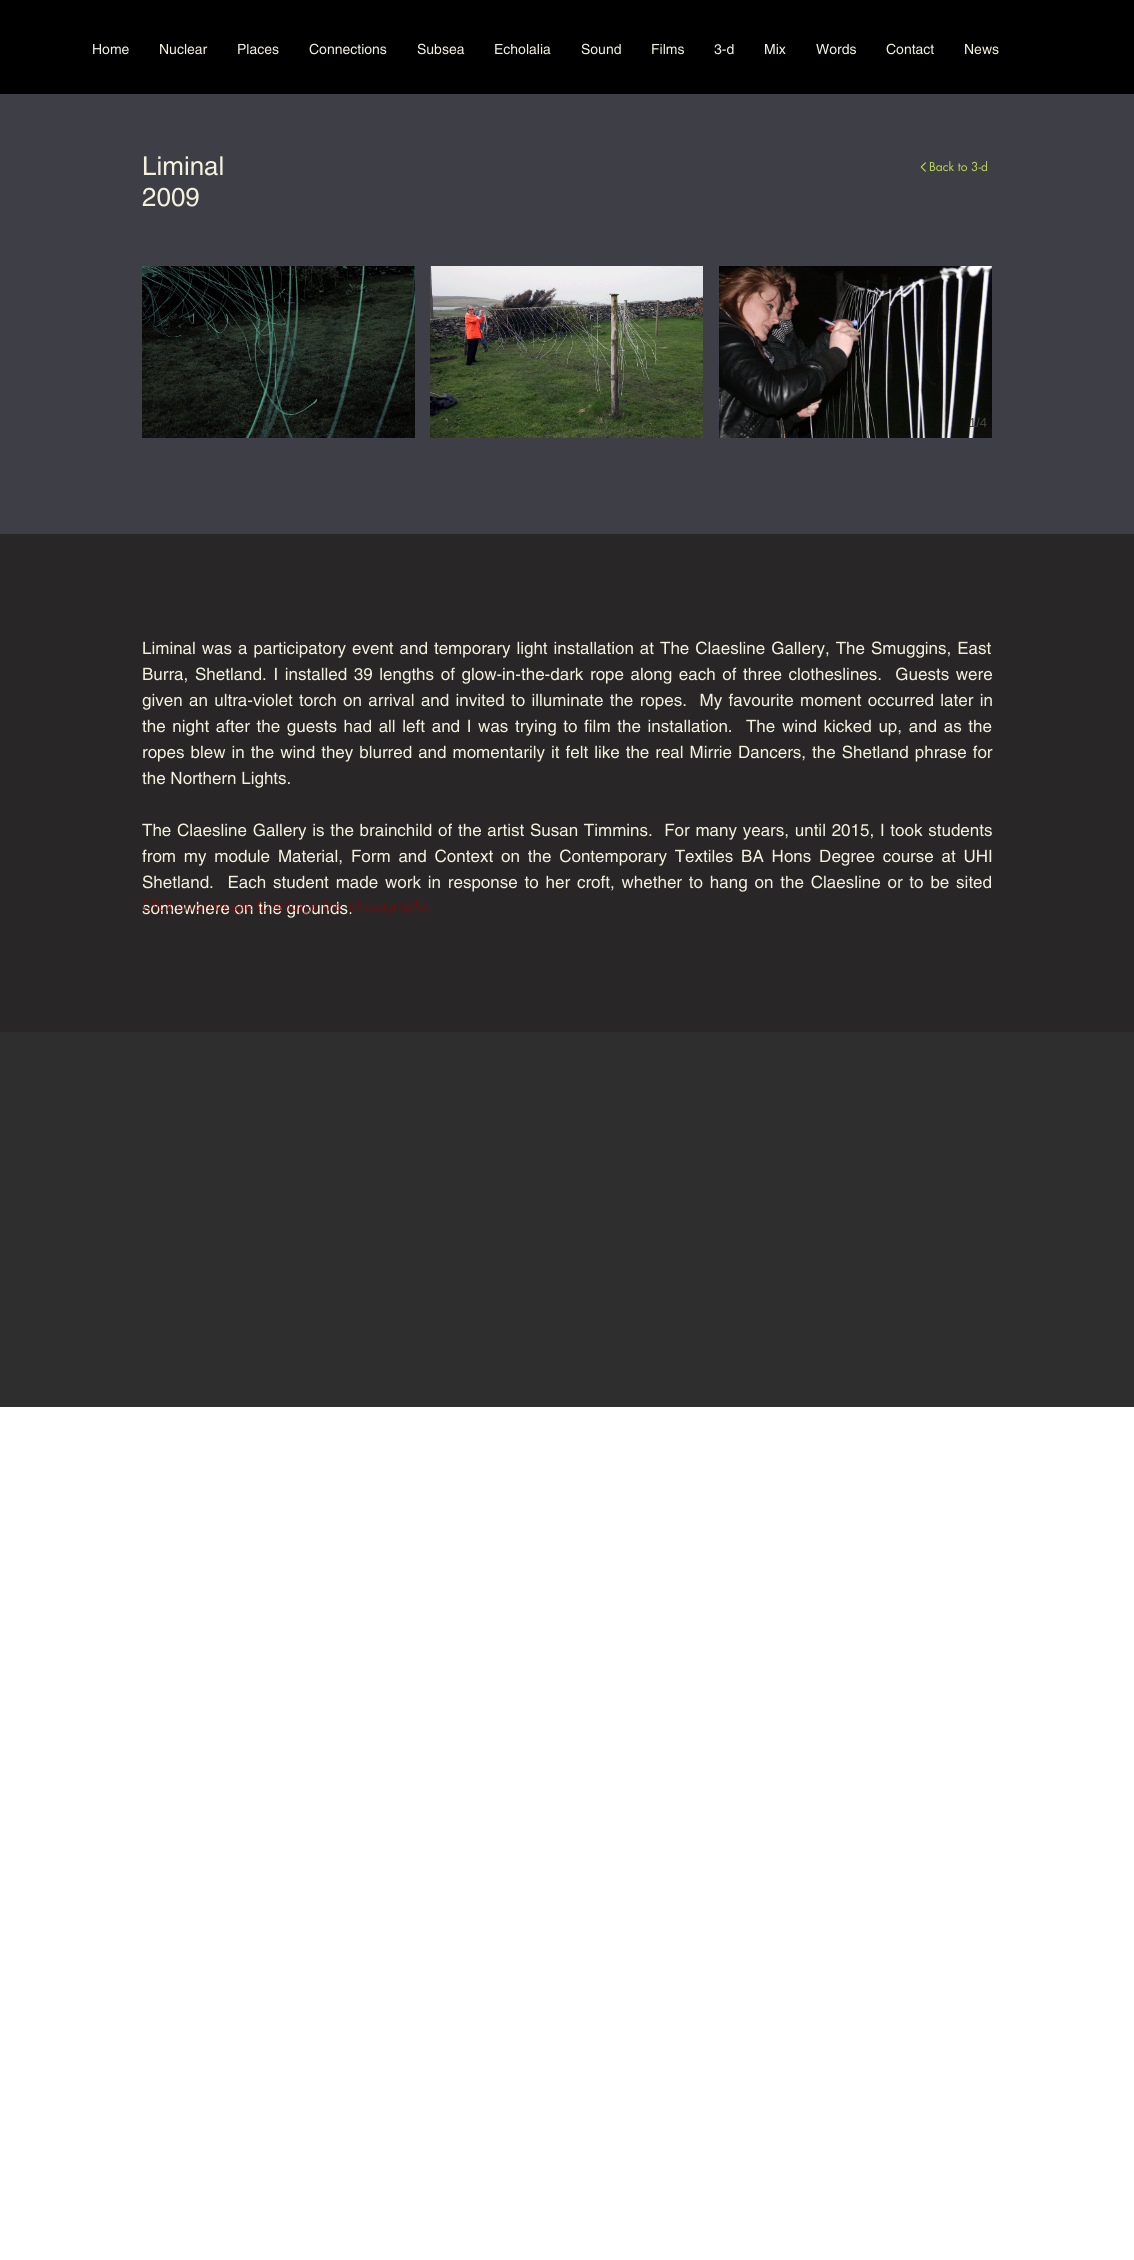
import math
import cairo

surface = cairo.ImageSurface(cairo.FORMAT_RGB24, 1134, 2260)
cr = cairo.Context(surface)
options = cairo.FontOptions()
options.set_hint_metrics(cairo.HINT_METRICS_OFF)
options.set_hint_style(cairo.HINT_STYLE_NONE)
cr.set_font_options(options)
cr.set_miter_limit(4)


def rgb(code):
    cr.set_source_rgb(*(v / 255 for v in bytes.fromhex(code[-6:])))


def tracked(x, y, s, letter, word):
    cr.move_to(x, y)
    for ch in s:
        cr.show_text(ch)
        cr.rel_move_to(letter + word * (ch == ' '), 0)


def image(path, x, y, w, h):
    cr.save()
    cr.set_source_surface(cairo.ImageSurface.create_from_png(path), x, y)
    cr.rectangle(x, y, w, h)
    cr.fill()
    cr.restore()


rgb("#ffffff")
cr.paint()
rgb("#000000")
cr.rectangle(0, 0, 1134, 94)
cr.fill()
rgb("#3e3e46")
cr.rectangle(0, 94, 1134, 440)
cr.fill()
image("img/1.png", 920, 162, 6, 10)
image("img/2.png", 142, 266, 273, 172)
image("img/3.png", 430, 266, 273, 172)
image("img/4.png", 719, 266, 273, 172)
rgb("#282626")
cr.rectangle(0, 534, 1134, 498)
cr.fill()
rgb("#2f2e2e")
cr.rectangle(0, 1032, 1134, 375)
cr.fill()
cr.select_font_face("helvetica")
cr.set_font_size(14)
rgb("#f3f1dc")
for x, y, s in [
    (92, 54, "Home"),
    (159, 54, "Nuclear"),
    (237, 54, "Places"),
    (309, 54, "Connections"),
    (417, 54, "Subsea"),
    (494, 54, "Echolalia"),
    (581, 54, "Sound"),
    (651, 54, "Films"),
    (714, 54, "3-d"),
    (764, 54, "Mix"),
    (816, 54, "Words"),
    (886, 54, "Contact"),
    (964, 54, "News"),
]:
    cr.move_to(x, y)
    cr.show_text(s)
cr.set_font_size(26)
cr.move_to(142, 175)
cr.show_text("Liminal")
cr.move_to(142, 206)
cr.show_text("2009")
cr.select_font_face("futura")
cr.set_font_size(12)
rgb("#bada55")
cr.move_to(929, 171)
cr.show_text("Back to 3-d")
cr.select_font_face("Liberation Sans")
cr.set_font_size(13)
rgb("#464643")
cr.move_to(969, 427)
cr.show_text("1/4")
cr.select_font_face("helvetica")
cr.set_font_size(17)
rgb("#f3f1dc")
tracked(142, 654, "Liminal was a participatory event and temporary light installation at The Claesline Gallery, The Smuggins, East", 0, 1.25)
tracked(142, 680, "Burra, Shetland. I installed 39 lengths of glow-in-the-dark rope along each of three clotheslines.  Guests were", 0, 1.9)
tracked(142, 706, "given an ultra-violet torch on arrival and invited to illuminate the ropes.  My favourite moment occurred later in", 0, 1.6)
tracked(142, 732, "the night after the guests had all left and I was trying to film the installation.  The wind kicked up, and as the", 0, 1.95)
tracked(142, 758, "ropes blew in the wind they blurred and momentarily it felt like the real Mirrie Dancers, the Shetland phrase for", 0, 1.25)
cr.move_to(142, 784)
cr.show_text("the Northern Lights.")
tracked(142, 836, "The Claesline Gallery is the brainchild of the artist Susan Timmins.  For many years, until 2015, I took students", 0, 1)
tracked(142, 862, "from my module Material, Form and Context on the Contemporary Textiles BA Hons Degree course at UHI", 0, 3.1)
tracked(142, 888, "Shetland.  Each student made work in response to her croft, whether to hang on the Claesline or to be sited", 0, 2.1)
cr.move_to(142, 914)
cr.show_text("somewhere on the grounds.")
cr.select_font_face("Lato Light", cairo.FONT_SLANT_ITALIC)
cr.set_font_size(16)
rgb("#8b0000")
cr.move_to(142, 911)
cr.show_text("Click on an image to enlarge the  photographs.")
surface.write_to_png("page.png")
